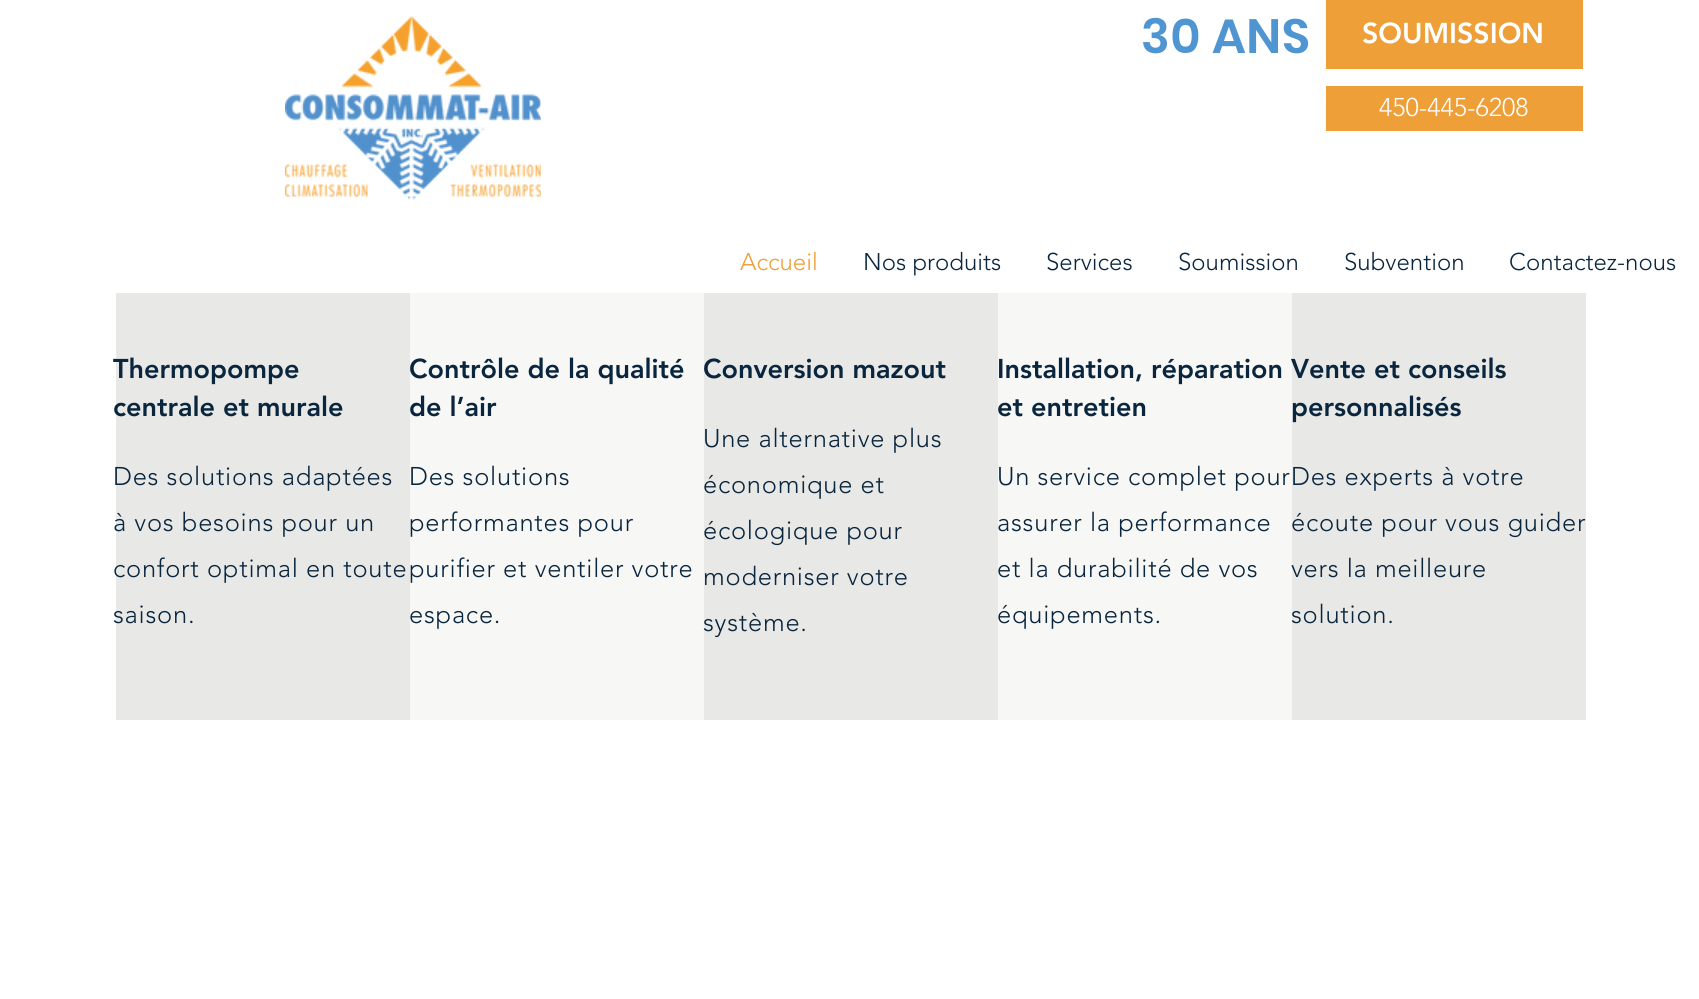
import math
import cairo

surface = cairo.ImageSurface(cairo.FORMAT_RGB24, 1699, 999)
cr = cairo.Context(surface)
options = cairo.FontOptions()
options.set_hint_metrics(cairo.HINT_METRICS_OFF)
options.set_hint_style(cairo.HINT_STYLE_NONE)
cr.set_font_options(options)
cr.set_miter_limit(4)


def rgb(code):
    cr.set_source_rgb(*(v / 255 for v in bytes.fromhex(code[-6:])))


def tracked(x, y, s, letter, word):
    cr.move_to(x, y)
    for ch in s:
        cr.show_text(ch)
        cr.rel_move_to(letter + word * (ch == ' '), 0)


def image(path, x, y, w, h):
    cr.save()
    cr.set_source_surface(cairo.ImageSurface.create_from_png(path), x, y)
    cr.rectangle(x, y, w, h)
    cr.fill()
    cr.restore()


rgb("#ffffff")
cr.paint()
image("img/1.png", 285, 16, 256, 184)
for x, y, w, h, color in [
    (1326, 0, 257, 69, "#ee9f38"),
    (1326, 86, 257, 45, "#ee9f38"),
    (116, 293, 294, 427, "#e8e8e6"),
    (410, 293, 294, 427, "#f7f7f5"),
    (704, 293, 294, 427, "#e8e8e6"),
    (998, 293, 294, 427, "#f7f7f5"),
    (1292, 293, 294, 427, "#e8e8e6"),
]:
    rgb(color)
    cr.rectangle(x, y, w, h)
    cr.fill()
cr.select_font_face("Poppins SemiBold")
cr.set_font_size(48)
rgb("#4f95d1")
tracked(1141, 53, "30 ANS", 0.5, 0)
cr.select_font_face("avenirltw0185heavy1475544 Black")
cr.set_font_size(28.5)
rgb("#ffffff")
cr.move_to(1362, 43)
cr.show_text("SOUMISSION")
cr.select_font_face("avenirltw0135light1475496 Light")
cr.set_font_size(25.5)
cr.move_to(1379, 116)
cr.show_text("450-445-6208")
cr.set_font_size(24)
rgb("#ee9f38")
cr.move_to(740, 270)
cr.show_text("Accueil")
rgb("#0a263e")
for x, y, s in [
    (863, 270, "Nos produits"),
    (1046, 270, "Services"),
    (1178, 270, "Soumission"),
    (1344, 270, "Subvention"),
    (1509, 270, "Contactez-nous"),
]:
    cr.move_to(x, y)
    cr.show_text(s)
cr.select_font_face("avenirltw0185heavy1475544 Black")
cr.set_font_size(27)
cr.move_to(113, 378)
cr.show_text("Thermopompe")
cr.move_to(113, 416)
cr.show_text("centrale et murale")
cr.select_font_face("avenirltw0135light1475496 Light")
cr.set_font_size(25.5)
for x, y, s in [
    (113, 485, "Des solutions adaptées"),
    (113, 531, "à vos besoins pour un"),
    (113, 577, "confort optimal en toute"),
    (113, 623, "saison."),
]:
    tracked(x, y, s, 0.75, 0)
cr.select_font_face("avenirltw0185heavy1475544 Black")
cr.set_font_size(27)
cr.move_to(409, 378)
cr.show_text("Contrôle de la qualité")
cr.move_to(409, 416)
cr.show_text("de l’air")
cr.select_font_face("avenirltw0135light1475496 Light")
cr.set_font_size(25.5)
for x, y, s in [
    (409, 485, "Des solutions"),
    (409, 531, "performantes pour"),
    (409, 577, "purifier et ventiler votre"),
    (409, 623, "espace."),
]:
    tracked(x, y, s, 0.75, 0)
cr.select_font_face("avenirltw0185heavy1475544 Black")
cr.set_font_size(27)
cr.move_to(703, 378)
cr.show_text("Conversion mazout")
cr.select_font_face("avenirltw0135light1475496 Light")
cr.set_font_size(25.5)
for x, y, s in [
    (703, 447, "Une alternative plus"),
    (703, 493, "économique et"),
    (703, 539, "écologique pour"),
    (703, 585, "moderniser votre"),
    (703, 631, "système."),
]:
    tracked(x, y, s, 0.75, 0)
cr.select_font_face("avenirltw0185heavy1475544 Black")
cr.set_font_size(27)
cr.move_to(997, 378)
cr.show_text("Installation, réparation")
cr.move_to(997, 416)
cr.show_text("et entretien")
cr.select_font_face("avenirltw0135light1475496 Light")
cr.set_font_size(25.5)
for x, y, s in [
    (997, 485, "Un service complet pour"),
    (997, 531, "assurer la performance"),
    (997, 577, "et la durabilité de vos"),
    (997, 623, "équipements."),
]:
    tracked(x, y, s, 0.75, 0)
cr.select_font_face("avenirltw0185heavy1475544 Black")
cr.set_font_size(27)
cr.move_to(1291, 378)
cr.show_text("Vente et conseils")
cr.move_to(1291, 416)
cr.show_text("personnalisés")
cr.select_font_face("avenirltw0135light1475496 Light")
cr.set_font_size(25.5)
for x, y, s in [
    (1291, 485, "Des experts à votre"),
    (1291, 531, "écoute pour vous guider"),
    (1291, 577, "vers la meilleure"),
    (1291, 623, "solution."),
]:
    tracked(x, y, s, 0.75, 0)
surface.write_to_png("page.png")
